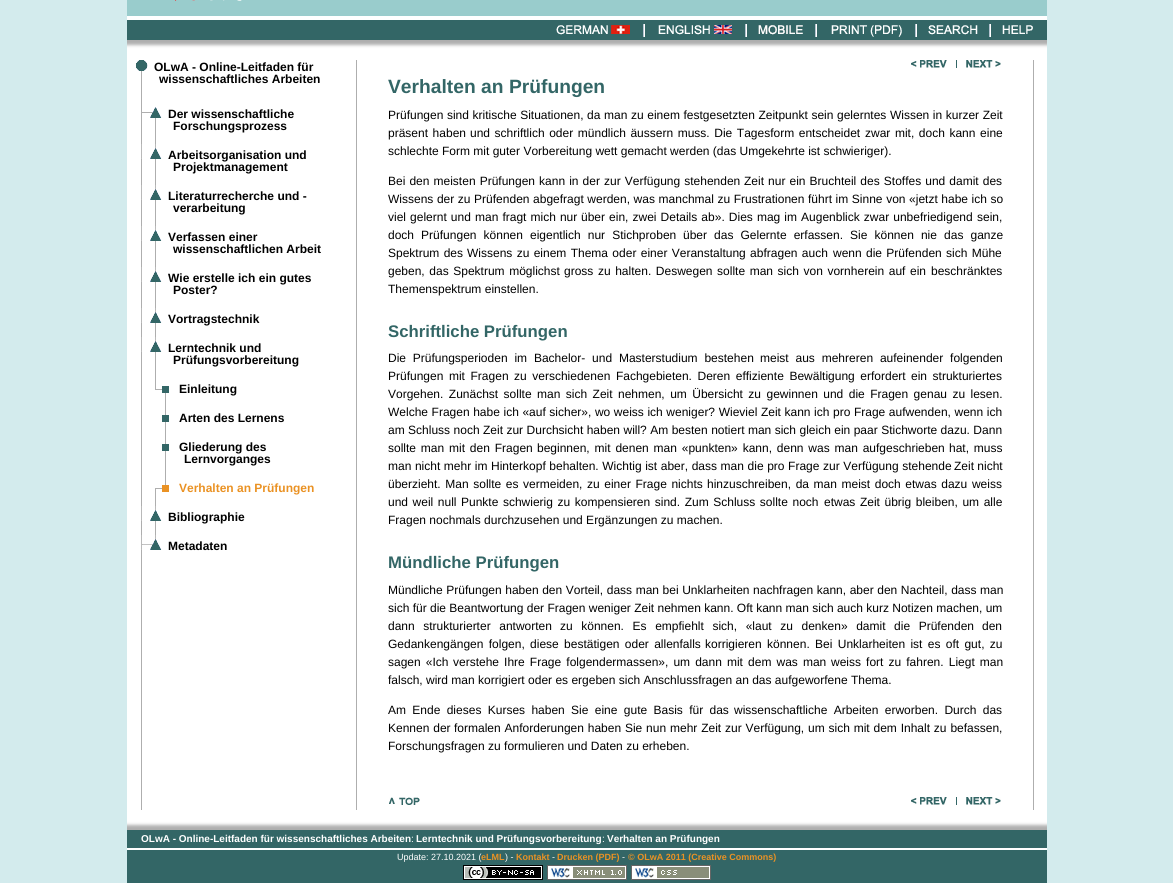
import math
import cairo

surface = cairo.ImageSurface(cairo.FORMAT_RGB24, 1173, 883)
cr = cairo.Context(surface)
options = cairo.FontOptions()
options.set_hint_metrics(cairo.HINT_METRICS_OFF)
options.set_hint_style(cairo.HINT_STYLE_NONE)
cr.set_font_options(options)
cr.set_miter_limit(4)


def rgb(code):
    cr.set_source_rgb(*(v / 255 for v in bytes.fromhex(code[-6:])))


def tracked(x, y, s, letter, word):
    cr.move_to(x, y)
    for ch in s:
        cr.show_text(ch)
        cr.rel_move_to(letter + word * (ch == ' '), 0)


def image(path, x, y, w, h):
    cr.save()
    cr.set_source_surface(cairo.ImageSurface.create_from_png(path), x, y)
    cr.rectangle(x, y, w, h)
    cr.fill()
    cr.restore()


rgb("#d3ebed")
cr.paint()
image("img/1.png", 127, 60, 920, 750)
rgb("#99cccc")
cr.rectangle(127, 0, 920, 16)
cr.fill()
image("img/2.png", 175, 0, 67, 1)
rgb("#ffffff")
cr.rectangle(127, 16, 920, 4)
cr.fill()
rgb("#336666")
cr.rectangle(127, 20, 920, 20)
cr.fill()
image("img/3.png", 556, 25, 74, 10)
image("img/4.png", 643, 24, 2, 13)
image("img/5.png", 658, 25, 74, 10)
image("img/4.png", 745, 24, 2, 13)
image("img/6.png", 758, 25, 45, 10)
image("img/4.png", 815, 24, 2, 13)
image("img/7.png", 831, 25, 71, 12)
image("img/4.png", 915, 24, 2, 13)
image("img/8.png", 928, 25, 50, 10)
image("img/4.png", 989, 24, 2, 13)
image("img/9.png", 1002, 25, 31, 9)
image("img/10.png", 127, 40, 920, 20)
image("img/11.png", 135, 60, 13, 11)
rgb("#aeaeae")
cr.rectangle(155, 118, 1, 26)
cr.fill()
image("img/12.png", 142, 103, 20, 15)
cr.rectangle(155, 159, 1, 26)
cr.fill()
image("img/13.png", 141, 144, 21, 15)
cr.rectangle(155, 200, 1, 26)
cr.fill()
image("img/13.png", 141, 185, 21, 15)
cr.rectangle(155, 241, 1, 26)
cr.fill()
image("img/13.png", 141, 226, 21, 15)
cr.rectangle(155, 282, 1, 26)
cr.fill()
image("img/13.png", 141, 267, 21, 15)
cr.rectangle(155, 323, 1, 14)
cr.fill()
image("img/13.png", 141, 308, 21, 15)
cr.rectangle(155, 352, 1, 26)
cr.fill()
image("img/13.png", 141, 337, 21, 15)
cr.rectangle(165, 393, 1, 84)
cr.fill()
image("img/14.png", 155, 378, 14, 15)
for x, y, w, h, color in [
    (162, 415, 7, 7, "#336666"),
    (162, 444, 7, 7, "#336666"),
    (155, 492, 1, 14, "#aeaeae"),
]:
    rgb(color)
    cr.rectangle(x, y, w, h)
    cr.fill()
image("img/15.png", 155, 477, 14, 15)
cr.rectangle(155, 521, 1, 14)
cr.fill()
image("img/13.png", 141, 506, 21, 15)
image("img/16.png", 141, 535, 21, 15)
image("img/17.png", 911, 60, 36, 8)
rgb("#336666")
cr.rectangle(956, 60, 1, 8)
cr.fill()
image("img/18.png", 966, 60, 35, 8)
image("img/19.png", 389, 797, 31, 8)
image("img/17.png", 911, 797, 36, 8)
cr.rectangle(956, 797, 1, 8)
cr.fill()
image("img/18.png", 966, 797, 35, 8)
cr.rectangle(127, 830, 920, 53)
cr.fill()
image("img/20.png", 127, 810, 920, 20)
rgb("#ffffff")
cr.rectangle(127, 848, 920, 2)
cr.fill()
image("img/21.png", 463, 865, 80, 15)
image("img/22.png", 547, 865, 80, 15)
image("img/23.png", 631, 865, 80, 15)
cr.select_font_face("Liberation Sans", cairo.FONT_SLANT_NORMAL, cairo.FONT_WEIGHT_BOLD)
cr.set_font_size(12)
rgb("#000000")
for x, y, s in [
    (154, 71, "OLwA - Online-Leitfaden für"),
    (159, 83, "wissenschaftliches Arbeiten"),
    (168, 118, "Der wissenschaftliche"),
    (173, 130, "Forschungsprozess"),
    (168, 159, "Arbeitsorganisation und"),
    (173, 171, "Projektmanagement"),
    (168, 200, "Literaturrecherche und -"),
    (173, 212, "verarbeitung"),
    (168, 241, "Verfassen einer"),
    (173, 253, "wissenschaftlichen Arbeit"),
    (168, 282, "Wie erstelle ich ein gutes"),
    (173, 294, "Poster?"),
    (168, 323, "Vortragstechnik"),
    (168, 352, "Lerntechnik und"),
    (173, 364, "Prüfungsvorbereitung"),
    (179, 393, "Einleitung"),
    (179, 422, "Arten des Lernens"),
    (179, 451, "Gliederung des"),
    (184, 463, "Lernvorganges"),
]:
    cr.move_to(x, y)
    cr.show_text(s)
rgb("#ea9224")
cr.move_to(179, 492)
cr.show_text("Verhalten an Prüfungen")
rgb("#000000")
cr.move_to(168, 521)
cr.show_text("Bibliographie")
cr.move_to(168, 550)
cr.show_text("Metadaten")
cr.set_font_size(19.25)
rgb("#336666")
cr.move_to(388, 93)
cr.show_text("Verhalten an Prüfungen")
cr.select_font_face("Liberation Sans")
cr.set_font_size(12)
rgb("#000000")
tracked(388, 119, "Prüfungen sind kritische Situationen, da man zu einem festgesetzten Zeitpunkt sein gelerntes Wissen in kurzer Zeit", 0, 0.25)
for x, y, s in [
    (388, 137, "präsent haben"),
    (470, 137, "und schriftlich oder mündlich äussern muss. Die Tagesform entscheidet"),
    (865, 137, "zwar mit, doch kann eine"),
]:
    tracked(x, y, s, 0, 1.25)
cr.move_to(388, 155)
cr.show_text("schlechte Form mit guter Vorbereitung wett gemacht werden (das Umgekehrte ist schwieriger).")
tracked(388, 185, "Bei den meisten Prüfungen kann in der zur Verfügung stehenden", 0, 0.75)
tracked(744, 185, "Zeit nur ein Bruchteil des Stoffes und damit des", 0, 0.75)
tracked(388, 203, "Wissens der zu Prüfenden abgefragt werden, was manchmal zu Frustrationen führt im Sinne von «jetzt habe ich so", 0, 0.25)
tracked(388, 221, "viel gelernt und man fragt mich nur", 0, 0.75)
tracked(581, 221, "über ein, zwei Details ab». Dies mag im Augenblick zwar unbefriedigend", 0, 0.75)
cr.move_to(977, 221)
cr.show_text("sein,")
tracked(388, 239, "doch Prüfungen können eigentlich nur Stichproben", 0, 3.75)
tracked(683, 239, "über das Gelernte erfassen. Sie können nie das ganze", 0, 3.75)
for x, y, s in [
    (388, 257, "Spektrum des"),
    (467, 257, "Wissens zu einem Thema oder einer Veranstaltung abfragen auch"),
    (833, 257, "wenn die Prüfenden sich Mühe"),
]:
    tracked(x, y, s, 0, 1)
tracked(388, 275, "geben, das Spektrum möglichst", 0, 1.25)
tracked(564, 275, "gross zu halten. Deswegen sollte man sich von vornherein auf ein", 0, 1.25)
cr.move_to(931, 275)
cr.show_text("beschränktes")
cr.move_to(388, 293)
cr.show_text("Themenspektrum einstellen.")
cr.select_font_face("Liberation Sans", cairo.FONT_SLANT_NORMAL, cairo.FONT_WEIGHT_BOLD)
cr.set_font_size(16.75)
rgb("#336666")
cr.move_to(388, 337)
cr.show_text("Schriftliche Prüfungen")
cr.select_font_face("Liberation Sans")
cr.set_font_size(12)
rgb("#000000")
tracked(388, 362, "Die Prüfungsperioden im Bachelor- und Masterstudium bestehen", 0, 3.5)
tracked(760, 362, "meist aus mehreren aufeinender folgenden", 0, 3.5)
for x, y, s in [
    (388, 380, "Prüfungen mit Fragen"),
    (514, 380, "zu verschiedenen Fachgebieten. Deren effiziente Bewältigung erfordert"),
    (911, 380, "ein strukturiertes"),
]:
    tracked(x, y, s, 0, 2.25)
tracked(388, 398, "Vorgehen. Zunächst sollte man sich Zeit", 0, 2.1)
tracked(618, 398, "nehmen, um Übersicht zu gewinnen und die Fragen genau zu lesen.", 0, 2.1)
tracked(388, 416, "Welche Fragen habe ich «auf sicher», wo weiss ich weniger? Wieviel Zeit kann ich pro Frage aufwenden, wenn ich", 0, 0.25)
tracked(388, 434, "am Schluss noch Zeit zur Durchsicht haben will? Am besten notiert man sich gleich ein paar Stichworte dazu. Dann", 0, 0.1)
for x, y, s in [
    (388, 452, "sollte man mit den Fragen"),
    (537, 452, "beginnen, mit denen man «punkten» kann, denn was man aufgeschrieben"),
    (949, 452, "hat, muss"),
]:
    tracked(x, y, s, 0, 1.5)
tracked(388, 470, "man nicht mehr im Hinterkopf behalten. Wichtig ist aber, dass man die pro Frage zur Verfügung stehende", 0, 0.25)
cr.move_to(954, 470)
cr.show_text("Zeit nicht")
for x, y, s in [
    (388, 488, "überzieht. Man sollte es vermeiden, zu einer Frage nichts"),
    (707, 488, "hinzuschreiben, da man meist doch etwas dazu weiss"),
    (388, 506, "und weil null"),
    (461, 506, "Punkte schwierig zu kompensieren sind. Zum Schluss sollte noch"),
    (824, 506, "etwas Zeit übrig bleiben, um alle"),
]:
    tracked(x, y, s, 0, 1.25)
cr.move_to(388, 524)
cr.show_text("Fragen nochmals durchzusehen und Ergänzungen zu machen.")
cr.select_font_face("Liberation Sans", cairo.FONT_SLANT_NORMAL, cairo.FONT_WEIGHT_BOLD)
cr.set_font_size(16.75)
rgb("#336666")
cr.move_to(388, 568)
cr.show_text("Mündliche Prüfungen")
cr.select_font_face("Liberation Sans")
cr.set_font_size(12)
rgb("#000000")
tracked(388, 594, "Mündliche Prüfungen haben den Vorteil, dass man bei Unklarheiten nachfragen kann, aber den Nachteil, dass man", 0, 0.25)
cr.move_to(388, 612)
cr.show_text("sich für die Beantwortung der Fragen weniger Zeit nehmen kann. Oft kann man sich auch kurz Notizen machen, um")
tracked(388, 630, "dann strukturierter antworten", 0, 5.25)
tracked(560, 630, "zu können. Es empfiehlt sich, «laut zu denken» damit die Prüfenden", 0, 5.25)
cr.move_to(982, 630)
cr.show_text("den")
tracked(388, 648, "Gedankengängen folgen, diese bestätigen oder allenfalls", 0, 2)
tracked(705, 648, "korrigieren können. Bei Unklarheiten ist es oft gut, zu", 0, 2)
for x, y, s in [
    (388, 666, "sagen «Ich"),
    (453, 666, "verstehe Ihre Frage folgendermassen», um dann mit dem was man"),
    (831, 666, "weiss fort zu fahren. Liegt man"),
]:
    tracked(x, y, s, 0, 1.75)
cr.move_to(388, 684)
cr.show_text("falsch, wird man korrigiert oder es ergeben sich Anschlussfragen an das aufgeworfene Thema.")
tracked(388, 714, "Am Ende dieses Kurses haben Sie eine gute Basis für das", 0, 3)
tracked(734, 714, "wissenschaftliche Arbeiten erworben. Durch das", 0, 3)
for x, y, s in [
    (388, 732, "Kennen der"),
    (454, 732, "formalen Anforderungen haben Sie nun mehr Zeit zur Verfügung,"),
    (808, 732, "um sich mit dem Inhalt zu befassen,"),
]:
    tracked(x, y, s, 0, 0.5)
cr.move_to(388, 750)
cr.show_text("Forschungsfragen zu formulieren und Daten zu erheben.")
cr.select_font_face("Liberation Sans", cairo.FONT_SLANT_NORMAL, cairo.FONT_WEIGHT_BOLD)
cr.set_font_size(10)
rgb("#ffffff")
cr.move_to(141, 842)
cr.show_text("OLwA - Online-Leitfaden für wissenschaftliches Arbeiten")
cr.select_font_face("Liberation Sans")
cr.move_to(411, 842)
cr.show_text(":")
cr.select_font_face("Liberation Sans", cairo.FONT_SLANT_NORMAL, cairo.FONT_WEIGHT_BOLD)
cr.move_to(416, 842)
cr.show_text("Lerntechnik und Prüfungsvorbereitung")
cr.select_font_face("Liberation Sans")
cr.move_to(602, 842)
cr.show_text(":")
cr.select_font_face("Liberation Sans", cairo.FONT_SLANT_NORMAL, cairo.FONT_WEIGHT_BOLD)
cr.move_to(607, 842)
cr.show_text("Verhalten an Prüfungen")
cr.select_font_face("Liberation Sans")
cr.set_font_size(9)
cr.move_to(397, 860)
cr.show_text("Update: 27.10.2021 (")
cr.select_font_face("Liberation Sans", cairo.FONT_SLANT_NORMAL, cairo.FONT_WEIGHT_BOLD)
rgb("#ea9224")
cr.move_to(481, 860)
cr.show_text("eLML")
cr.select_font_face("Liberation Sans")
rgb("#ffffff")
cr.move_to(505, 860)
cr.show_text(") -")
cr.select_font_face("Liberation Sans", cairo.FONT_SLANT_NORMAL, cairo.FONT_WEIGHT_BOLD)
rgb("#ea9224")
cr.move_to(516, 860)
cr.show_text("Kontakt")
cr.select_font_face("Liberation Sans")
rgb("#ffffff")
cr.move_to(552, 860)
cr.show_text("-")
cr.select_font_face("Liberation Sans", cairo.FONT_SLANT_NORMAL, cairo.FONT_WEIGHT_BOLD)
rgb("#ea9224")
cr.move_to(557, 860)
cr.show_text("Drucken (PDF)")
cr.select_font_face("Liberation Sans")
rgb("#ffffff")
cr.move_to(622, 860)
cr.show_text("-")
cr.select_font_face("Liberation Sans", cairo.FONT_SLANT_NORMAL, cairo.FONT_WEIGHT_BOLD)
rgb("#ea9224")
cr.move_to(628, 860)
cr.show_text("© OLwA 2011 (Creative Commons)")
surface.write_to_png("page.png")
